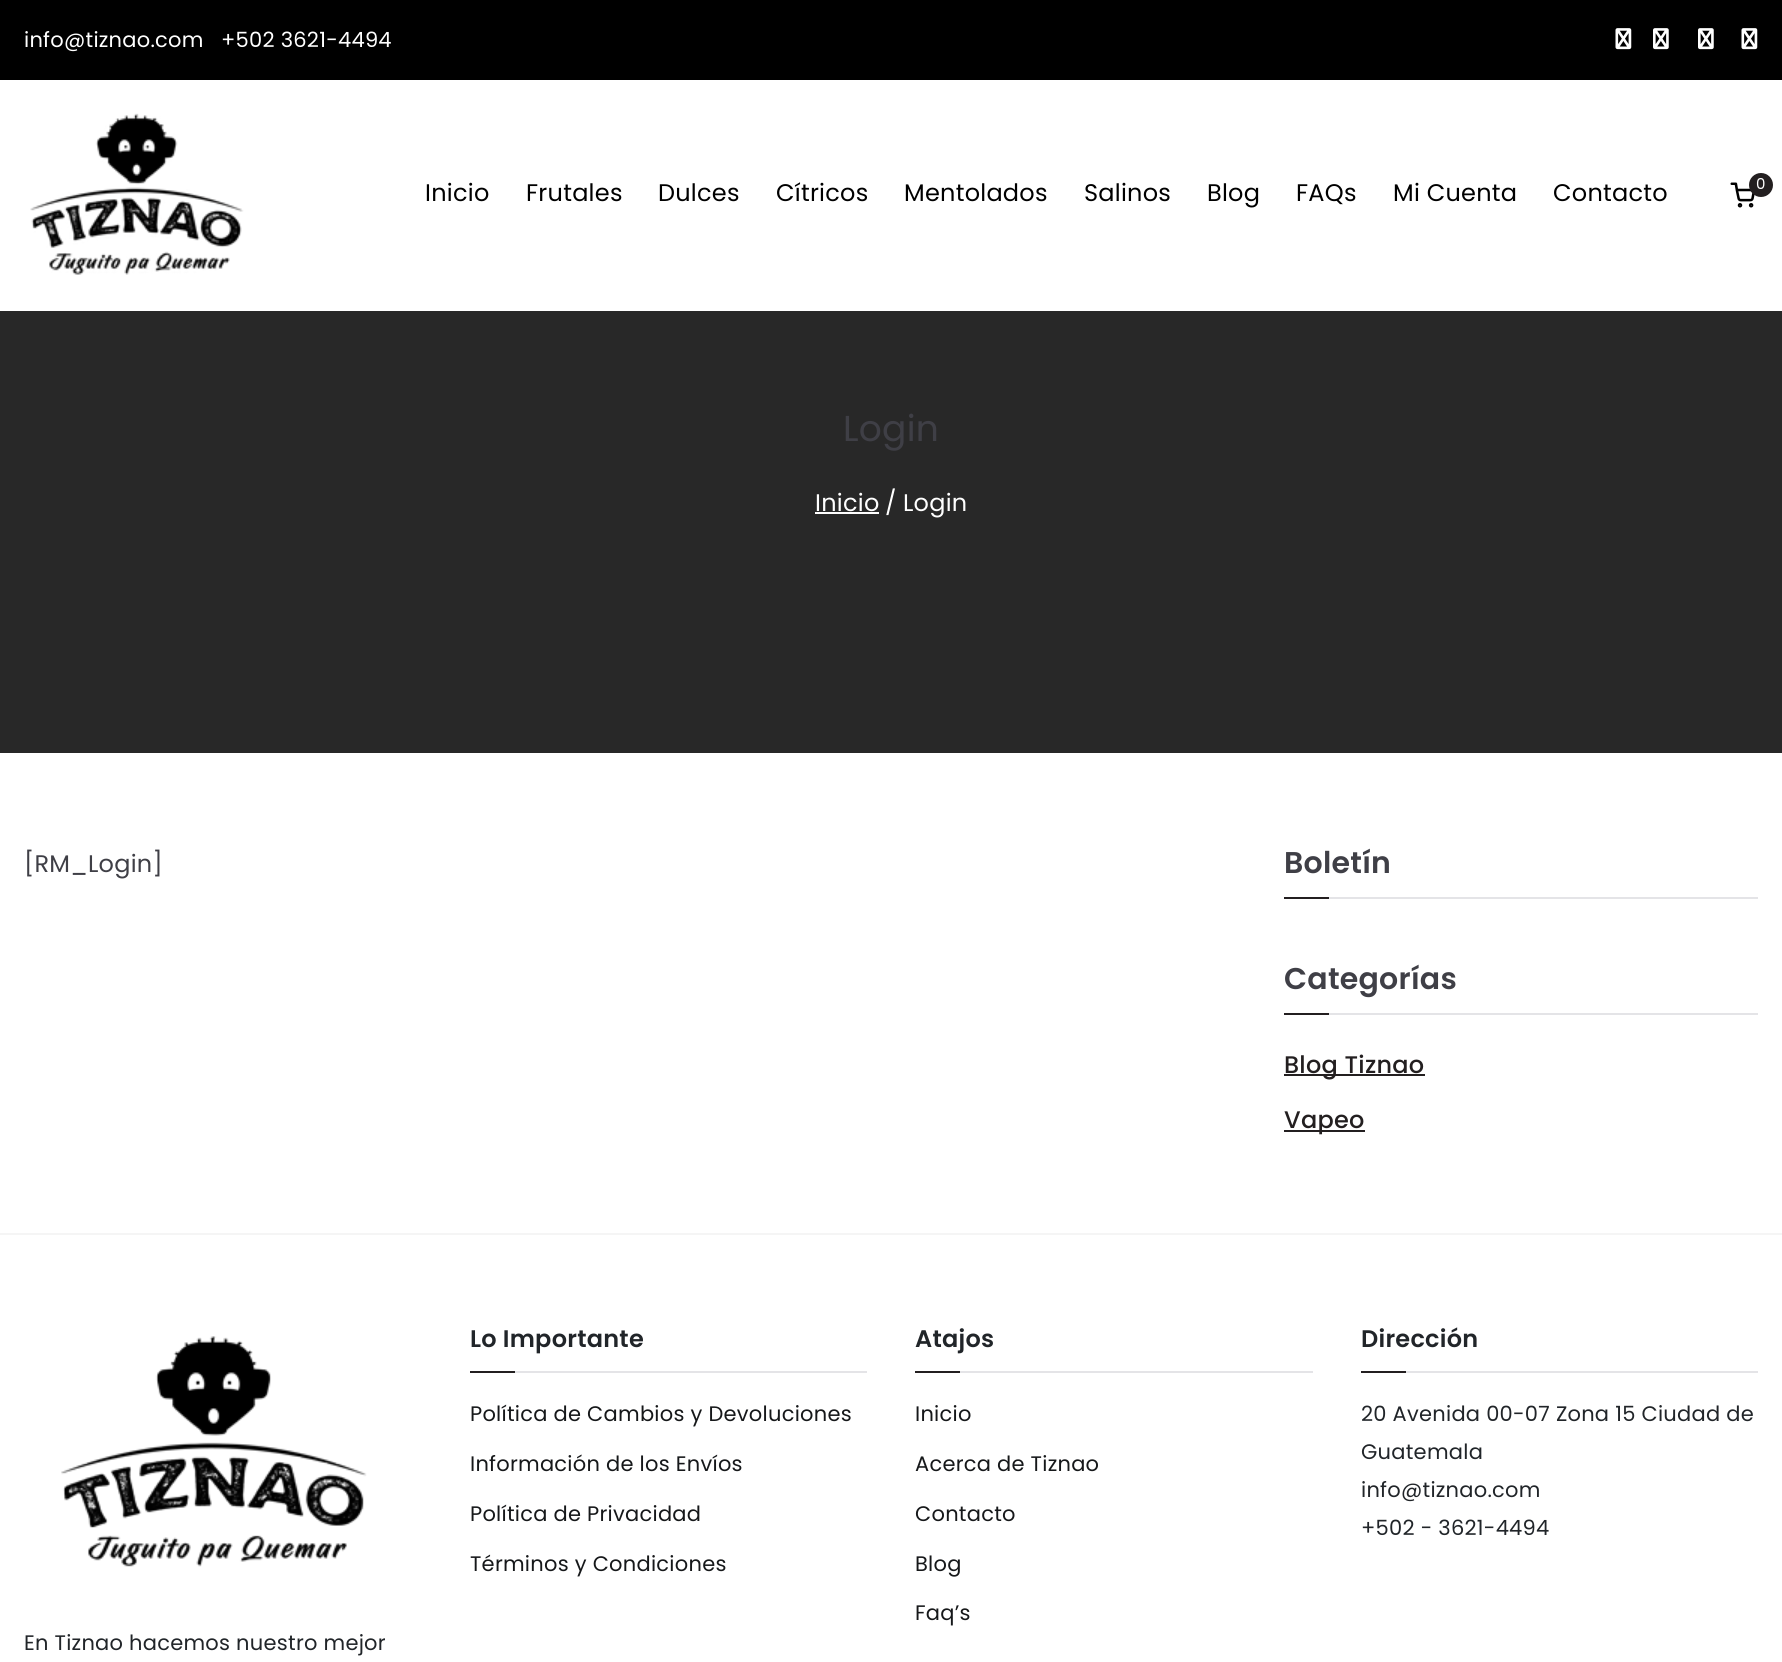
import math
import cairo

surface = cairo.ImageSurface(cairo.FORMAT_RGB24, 1782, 1662)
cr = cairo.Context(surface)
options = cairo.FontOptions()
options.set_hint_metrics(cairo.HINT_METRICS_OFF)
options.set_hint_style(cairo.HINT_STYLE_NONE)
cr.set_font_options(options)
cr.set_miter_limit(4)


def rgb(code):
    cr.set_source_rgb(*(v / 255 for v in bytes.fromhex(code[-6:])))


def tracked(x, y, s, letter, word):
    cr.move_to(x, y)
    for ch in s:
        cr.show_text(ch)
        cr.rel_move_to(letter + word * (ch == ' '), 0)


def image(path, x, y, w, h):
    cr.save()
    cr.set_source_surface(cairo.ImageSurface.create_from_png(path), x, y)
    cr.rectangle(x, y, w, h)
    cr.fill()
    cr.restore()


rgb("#ffffff")
cr.paint()
rgb("#000000")
cr.rectangle(0, 0, 1782, 80)
cr.fill()
image("img/1.png", 1615, 28, 17, 22)
image("img/2.png", 1653, 28, 16, 22)
image("img/2.png", 1698, 28, 16, 22)
image("img/1.png", 1741, 28, 17, 22)
image("img/3.png", 30, 113, 214, 162)
image("img/4.png", 1730, 182, 25, 26)
rgb("#231f20")
cr.arc(1761, 185, 12, 0, 2 * math.pi)
cr.fill()
for x, y, w, h, color in [
    (0, 311, 1782, 442, "#282828"),
    (815, 512, 64, 2, "#ffffff"),
    (1329, 897, 429, 2, "#e4e4e7"),
    (1284, 897, 45, 2, "#231f20"),
    (1329, 1013, 429, 2, "#e4e4e7"),
    (1284, 1013, 45, 2, "#231f20"),
    (1284, 1074, 141, 2, "#231f20"),
    (1284, 1130, 81, 2, "#231f20"),
    (0, 1233, 1782, 2, "#f5f5f5"),
    (515, 1371, 352, 2, "#e4e4e7"),
    (470, 1371, 45, 2, "#231f20"),
    (960, 1371, 353, 2, "#e4e4e7"),
    (915, 1371, 45, 2, "#231f20"),
    (1406, 1371, 352, 2, "#e4e4e7"),
    (1361, 1371, 45, 2, "#231f20"),
]:
    rgb(color)
    cr.rectangle(x, y, w, h)
    cr.fill()
image("img/5.png", 61, 1336, 306, 231)
cr.select_font_face("Poppins")
cr.set_font_size(21)
rgb("#ffffff")
tracked(24, 47, "info@tiznao.com", 0.25, 0)
tracked(221, 47, "+502 3621-4494", 0.25, 0)
cr.set_font_size(24)
rgb("#000000")
for x, y, s in [
    (425, 201, "Inicio"),
    (526, 201, "Frutales"),
    (658, 201, "Dulces"),
    (776, 201, "Cítricos"),
    (904, 201, "Mentolados"),
    (1084, 201, "Salinos"),
    (1207, 201, "Blog"),
    (1296, 201, "FAQs"),
    (1393, 201, "Mi Cuenta"),
    (1553, 201, "Contacto"),
]:
    tracked(x, y, s, 0.25, 0)
cr.set_font_size(15)
rgb("#ffffff")
tracked(1756, 189, "0", 0.25, 0)
cr.set_font_size(36)
rgb("#3f3f46")
tracked(843, 441, "Login", 0.25, 0)
cr.set_font_size(24)
rgb("#ffffff")
for x, y, s in [
    (815, 511, "Inicio"),
    (885, 511, "/"),
    (903, 511, "Login"),
]:
    tracked(x, y, s, 0.25, 0)
rgb("#3f3f46")
tracked(24, 872, "[RM_Login]", 0.25, 0)
cr.select_font_face("Poppins SemiBold")
cr.set_font_size(30)
tracked(1284, 873, "Boletín", 0.25, 0)
tracked(1284, 989, "Categorías", 0.25, 0)
cr.select_font_face("Poppins Medium")
cr.set_font_size(24)
rgb("#231f20")
tracked(1284, 1073, "Blog Tiznao", 0.25, 0)
tracked(1284, 1128, "Vapeo", 0.25, 0)
cr.select_font_face("Poppins SemiBold")
rgb("#212529")
tracked(470, 1347, "Lo Importante", 0.25, 0)
cr.select_font_face("Poppins")
cr.set_font_size(21)
rgb("#16181a")
for x, y, s in [
    (470, 1421, "Política de Cambios y Devoluciones"),
    (470, 1471, "Información de los Envíos"),
    (470, 1521, "Política de Privacidad"),
    (470, 1571, "Términos y Condiciones"),
]:
    tracked(x, y, s, 0.25, 0)
cr.select_font_face("Poppins SemiBold")
cr.set_font_size(24)
rgb("#212529")
tracked(915, 1347, "Atajos", 0.25, 0)
cr.select_font_face("Poppins")
cr.set_font_size(21)
rgb("#16181a")
for x, y, s in [
    (915, 1421, "Inicio"),
    (915, 1471, "Acerca de Tiznao"),
    (915, 1521, "Contacto"),
    (915, 1571, "Blog"),
    (915, 1620, "Faq’s"),
]:
    tracked(x, y, s, 0.25, 0)
cr.select_font_face("Poppins SemiBold")
cr.set_font_size(24)
rgb("#212529")
tracked(1361, 1347, "Dirección", 0.25, 0)
cr.select_font_face("Poppins")
cr.set_font_size(21)
for x, y, s in [
    (1361, 1421, "20 Avenida 00-07 Zona 15 Ciudad de"),
    (1361, 1459, "Guatemala"),
    (1361, 1497, "info@tiznao.com"),
    (1361, 1535, "+502 - 3621-4494"),
    (24, 1650, "En Tiznao hacemos nuestro mejor"),
]:
    tracked(x, y, s, 0.25, 0)
surface.write_to_png("page.png")
